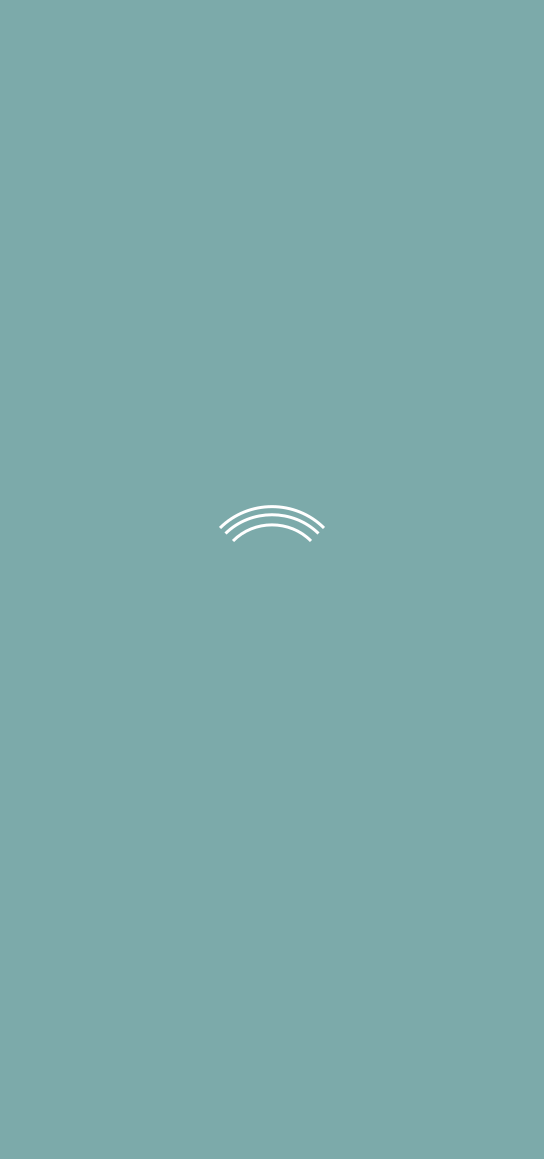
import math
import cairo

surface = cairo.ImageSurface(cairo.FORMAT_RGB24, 544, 1159)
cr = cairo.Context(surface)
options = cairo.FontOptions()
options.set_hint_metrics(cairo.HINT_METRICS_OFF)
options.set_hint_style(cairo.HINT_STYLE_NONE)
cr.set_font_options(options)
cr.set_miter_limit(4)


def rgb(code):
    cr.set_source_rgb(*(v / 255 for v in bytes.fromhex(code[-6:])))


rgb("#7caaaa")
cr.paint()
cr.new_path()
cr.move_to(220, 528)
cr.curve_to(248.5, 499.5, 295.5, 499.5, 324, 528)
rgb("#ffffff")
cr.set_line_width(3)
cr.stroke()
cr.new_path()
cr.move_to(225.5, 533.5)
cr.curve_to(251, 508.5, 293, 508.5, 318.5, 533.5)
cr.stroke()
cr.new_path()
cr.move_to(233, 541)
cr.curve_to(254, 519.5, 290, 519.5, 311, 541)
cr.stroke()
surface.write_to_png("page.png")
